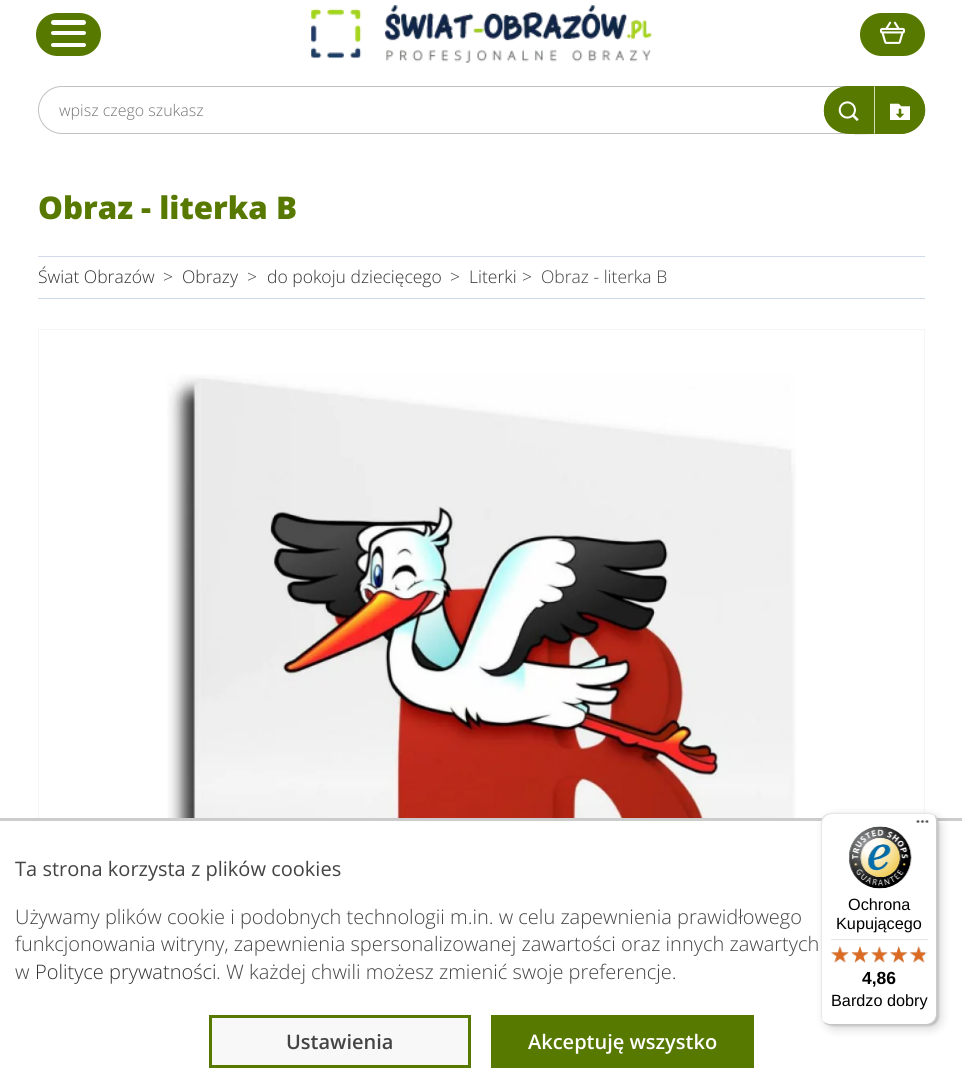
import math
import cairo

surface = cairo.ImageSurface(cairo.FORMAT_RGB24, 962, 1092)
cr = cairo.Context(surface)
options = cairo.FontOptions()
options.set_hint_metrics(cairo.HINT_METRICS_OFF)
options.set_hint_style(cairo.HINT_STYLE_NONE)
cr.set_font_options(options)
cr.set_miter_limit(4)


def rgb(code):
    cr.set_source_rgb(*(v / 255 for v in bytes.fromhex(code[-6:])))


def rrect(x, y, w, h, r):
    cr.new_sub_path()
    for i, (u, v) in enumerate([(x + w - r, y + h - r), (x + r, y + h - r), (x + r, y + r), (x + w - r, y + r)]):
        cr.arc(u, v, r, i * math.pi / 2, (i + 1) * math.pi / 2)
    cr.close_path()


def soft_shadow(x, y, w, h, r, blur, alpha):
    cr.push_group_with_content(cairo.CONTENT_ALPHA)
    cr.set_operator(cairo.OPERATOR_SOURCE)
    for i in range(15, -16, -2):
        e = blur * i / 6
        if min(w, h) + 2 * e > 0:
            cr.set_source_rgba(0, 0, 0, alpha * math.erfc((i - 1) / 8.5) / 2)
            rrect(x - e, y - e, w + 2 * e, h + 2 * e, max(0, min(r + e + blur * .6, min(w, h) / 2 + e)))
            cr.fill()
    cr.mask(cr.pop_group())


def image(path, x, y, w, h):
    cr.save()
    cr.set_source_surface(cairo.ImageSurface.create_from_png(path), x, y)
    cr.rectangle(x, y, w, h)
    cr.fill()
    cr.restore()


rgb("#ffffff")
cr.paint()
rgb("#587900")
rrect(36, 13, 65, 43, 21.5)
cr.fill()
rgb("#ffffff")
rrect(51, 20, 35, 5, 2.5)
cr.fill()
rrect(51, 31, 35, 4, 2)
cr.fill()
rrect(51, 43, 35, 4, 2)
cr.fill()
image("img/1.png", 311, 5, 341, 58)
rgb("#587900")
rrect(860, 13, 65, 43, 21.5)
cr.fill()
image("img/2.png", 880, 21, 25, 23)
rrect(38.5, 86.5, 886, 47, 23.5)
rgb("#c0c0c0")
cr.set_line_width(1)
cr.stroke()
rgb("#587900")
cr.new_path()
cr.move_to(849, 86)
cr.line_to(874, 86)
cr.line_to(874, 134)
cr.curve_to(864, 134, 847, 135, 839, 132)
cr.curve_to(814, 122, 822, 86, 849, 86)
cr.close_path()
cr.fill()
cr.new_path()
cr.move_to(849, 87.5)
cr.line_to(872.5, 87.5)
cr.line_to(872.5, 132.5)
cr.curve_to(863.5, 132.5, 847.5, 134, 839.5, 130.5)
cr.curve_to(815.5, 121, 823.5, 87.5, 849, 87.5)
cr.close_path()
cr.set_line_width(2.5)
cr.stroke()
image("img/3.png", 838, 101, 21, 20)
cr.new_path()
cr.move_to(875, 86)
cr.line_to(900, 86)
cr.curve_to(914, 86, 925, 97, 925, 110)
cr.curve_to(925, 123, 914, 134, 900, 134)
cr.line_to(875, 134)
cr.close_path()
cr.fill()
cr.new_path()
cr.move_to(876, 87.5)
cr.line_to(900, 87.5)
cr.curve_to(913, 87.5, 924, 97.5, 924, 110)
cr.curve_to(924, 122.5, 913, 132.5, 900, 132.5)
cr.line_to(876, 132.5)
cr.close_path()
cr.stroke()
image("img/4.png", 890, 103, 20, 17)
rgb("#cfdaea")
cr.rectangle(38, 256, 887, 1)
cr.fill()
cr.rectangle(38, 298, 887, 1)
cr.fill()
cr.rectangle(38.5, 329.5, 886, 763)
rgb("#f4f5f7")
cr.set_line_width(1)
cr.stroke()
image("img/5.png", 167, 374, 629, 444)
rgb("#ffffff")
cr.rectangle(38, 821, 887, 271)
cr.fill()
rgb("#cccccc")
cr.rectangle(0, 818, 962, 3)
cr.fill()
rgb("#f8f8f8")
cr.rectangle(210.5, 1016.5, 259, 50)
cr.fill_preserve()
rgb("#587900")
cr.set_line_width(3)
cr.stroke()
cr.rectangle(491, 1015, 263, 53)
cr.fill()
rgb("#000000")
soft_shadow(825, 816, 116, 213, 10, 5, 0.15)
soft_shadow(823, 814, 116, 212, 10, 1, 0.15)
rgb("#ffffff")
rrect(821, 813, 117, 212, 10)
cr.fill()
cr.set_source_rgba(0, 0, 0, 0.1)
cr.new_path()
cr.move_to(832, 814)
cr.line_to(929, 814)
cr.curve_to(931, 814, 934, 815, 936, 817)
cr.curve_to(934, 814, 931, 813, 928, 813)
cr.line_to(831, 813)
cr.curve_to(825, 813, 821, 817, 821, 823)
cr.line_to(821, 1015)
cr.curve_to(821, 1018, 822, 1021, 824, 1023)
cr.curve_to(823, 1021, 822, 1019, 822, 1016)
cr.line_to(822, 824)
cr.curve_to(822, 818, 827, 814, 832, 814)
cr.close_path()
cr.fill()
cr.set_source_rgba(0, 0, 0, 0.2)
cr.new_path()
cr.move_to(823, 1022)
cr.curve_to(825, 1024, 828, 1025, 831, 1025)
cr.line_to(928, 1025)
cr.curve_to(934, 1025, 938, 1021, 938, 1015)
cr.line_to(938, 823)
cr.curve_to(938, 820, 936, 817, 934, 815)
cr.curve_to(935, 817, 936, 819, 936, 821)
cr.line_to(936, 1014)
cr.curve_to(936, 1019, 932, 1024, 926, 1024)
cr.line_to(830, 1024)
cr.curve_to(827, 1024, 825, 1023, 823, 1022)
cr.close_path()
cr.fill()
cr.set_source_rgba(0.196, 0.196, 0.196, 0.2)
cr.new_path()
cr.move_to(823, 1021)
cr.curve_to(825, 1024, 828, 1025, 831, 1025)
cr.line_to(928, 1025)
cr.curve_to(934, 1025, 938, 1021, 938, 1015)
cr.line_to(938, 823)
cr.curve_to(938, 820, 937, 817, 935, 815)
cr.curve_to(936, 817, 937, 819, 937, 822)
cr.line_to(937, 1014)
cr.curve_to(937, 1020, 932, 1024, 927, 1024)
cr.line_to(830, 1024)
cr.curve_to(828, 1024, 825, 1023, 823, 1021)
cr.close_path()
cr.fill()
cr.set_source_rgba(1, 1, 1, 0.3)
cr.new_path()
cr.move_to(821, 1014)
cr.line_to(821, 1015)
cr.curve_to(821, 1021, 825, 1025, 831, 1025)
cr.line_to(928, 1025)
cr.curve_to(934, 1025, 938, 1021, 938, 1015)
cr.line_to(938, 823)
cr.curve_to(938, 820, 937, 817, 935, 815)
cr.curve_to(936, 817, 937, 819, 937, 822)
cr.line_to(937, 1014)
cr.curve_to(937, 1020, 932, 1024, 927, 1024)
cr.line_to(831, 1024)
cr.curve_to(825, 1024, 821, 1020, 821, 1014)
cr.close_path()
cr.fill()
image("img/6.png", 916, 820, 13, 3)
image("img/7.png", 849, 826, 63, 63)
rgb("#e5e5e5")
cr.rectangle(831, 939, 97, 1)
cr.fill()
image("img/8.png", 831, 947, 18, 15)
image("img/9.png", 852, 946, 16, 17)
image("img/10.png", 871, 947, 17, 15)
image("img/11.png", 890, 946, 17, 17)
image("img/12.png", 910, 947, 18, 15)
image("img/13.png", 831, 946, 18, 17)
image("img/14.png", 851, 946, 18, 17)
image("img/15.png", 871, 946, 17, 17)
image("img/16.png", 890, 946, 17, 17)
image("img/17.png", 910, 946, 15, 17)
cr.select_font_face("Open Sans Light")
cr.set_font_size(16)
rgb("#757575")
cr.move_to(59, 116)
cr.show_text("wpisz czego szukasz")
cr.select_font_face("Open Sans ExtraBold")
cr.set_font_size(31.25)
rgb("#587900")
cr.move_to(38, 219)
cr.show_text("Obraz - literka B")
cr.select_font_face("Open Sans Light")
cr.set_font_size(17.5)
rgb("#333333")
cr.move_to(38, 283)
cr.show_text("Świat Obrazów")
rgb("#444444")
cr.move_to(163, 283)
cr.show_text(">")
rgb("#333333")
cr.move_to(182, 283)
cr.show_text("Obrazy")
rgb("#444444")
cr.move_to(247, 283)
cr.show_text(">")
rgb("#333333")
cr.move_to(267, 283)
cr.show_text("do pokoju dziecięcego")
rgb("#444444")
cr.move_to(450, 283)
cr.show_text(">")
rgb("#333333")
cr.move_to(469, 283)
cr.show_text("Literki")
rgb("#444444")
cr.move_to(522, 283)
cr.show_text(">")
cr.move_to(541, 283)
cr.show_text("Obraz - literka B")
cr.select_font_face("Open Sans")
cr.set_font_size(20)
cr.move_to(15, 876)
cr.show_text("Ta strona korzysta z plików cookies")
cr.select_font_face("Open Sans Light")
for x, y, s in [
    (15, 924, "Używamy plików cookie i podobnych technologii m.in. w celu zapewnienia prawidłowego"),
    (15, 951, "funkcjonowania witryny, zapewnienia spersonalizowanej zawartości oraz innych zawartych"),
    (15, 979, "w"),
]:
    cr.move_to(x, y)
    cr.show_text(s)
rgb("#333333")
cr.move_to(35, 979)
cr.show_text("Polityce prywatności")
rgb("#444444")
cr.move_to(216, 979)
cr.show_text(". W każdej chwili możesz zmienić swoje preferencje.")
cr.select_font_face("Open Sans SemiBold")
cr.move_to(286, 1049)
cr.show_text("Ustawienia")
rgb("#ffffff")
cr.move_to(528, 1049)
cr.show_text("Akceptuję wszystko")
cr.select_font_face("Liberation Sans")
cr.set_font_size(16.25)
rgb("#000000")
cr.move_to(848, 910)
cr.show_text("Ochrona")
cr.move_to(836, 929)
cr.show_text("Kupującego")
cr.select_font_face("Liberation Sans", cairo.FONT_SLANT_NORMAL, cairo.FONT_WEIGHT_BOLD)
cr.set_font_size(17.5)
cr.move_to(862, 984)
cr.show_text("4,86")
cr.select_font_face("Liberation Sans")
cr.set_font_size(16.25)
cr.move_to(831, 1006)
cr.show_text("Bardzo dobry")
surface.write_to_png("page.png")
